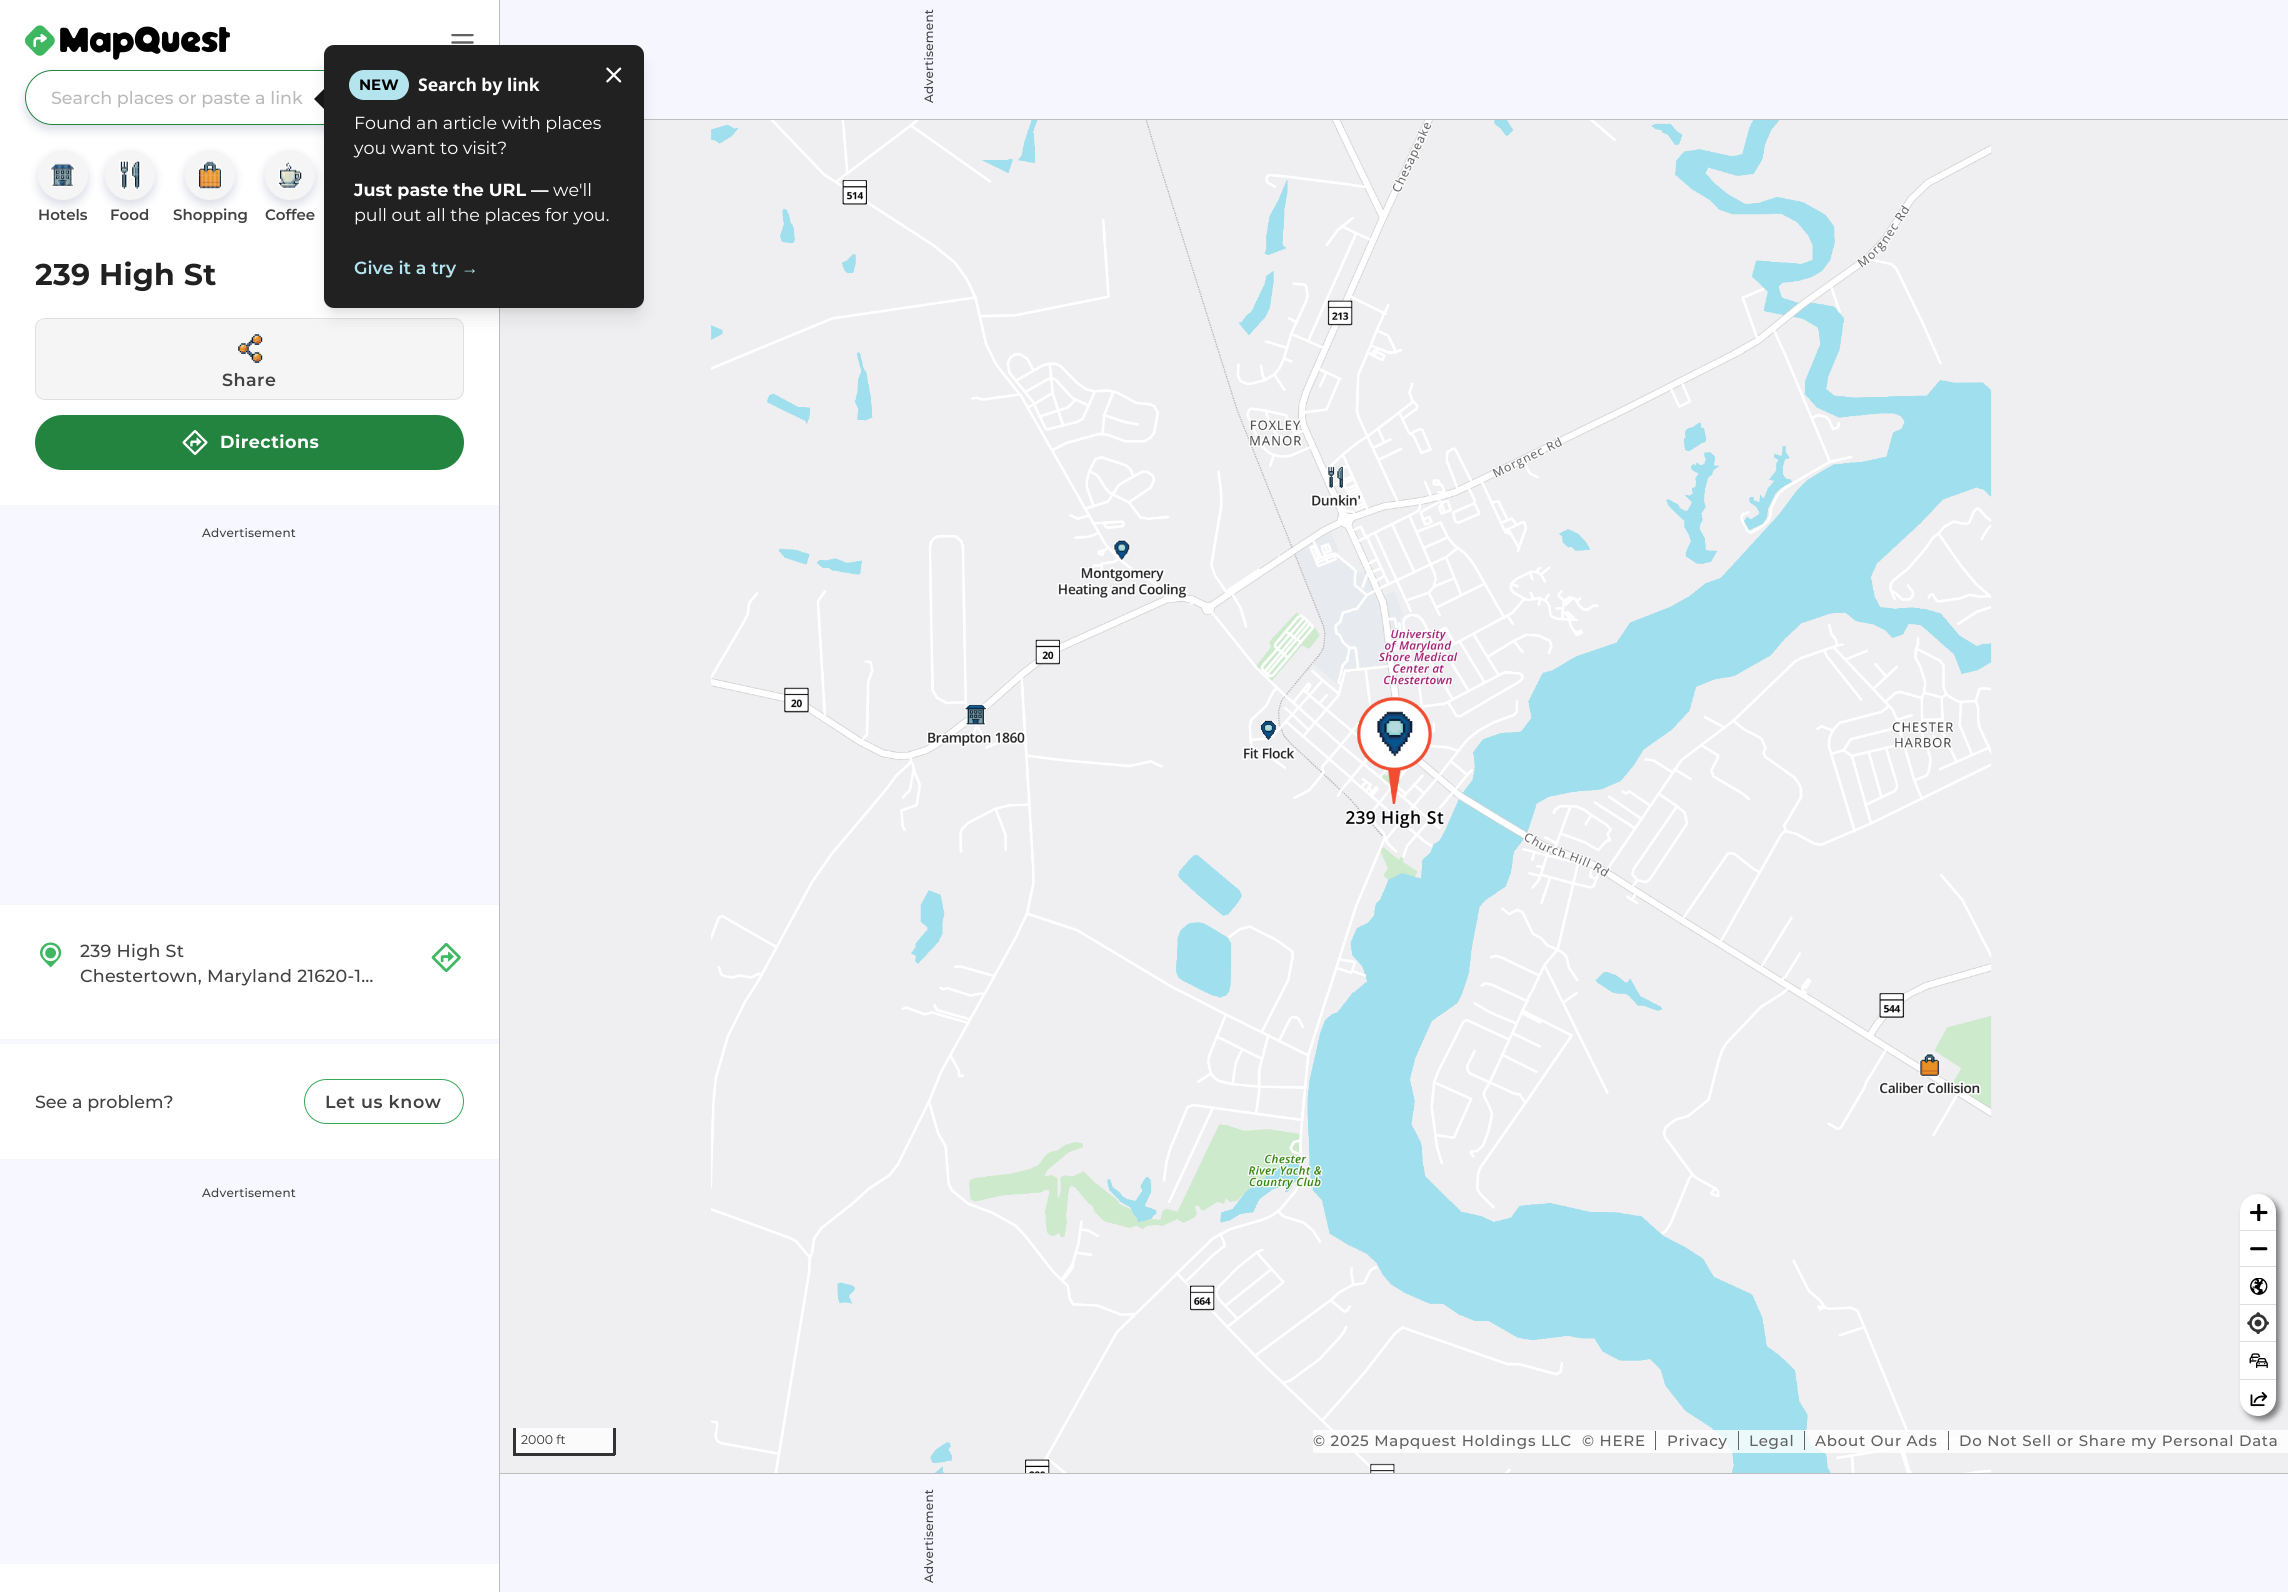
import math
import cairo

surface = cairo.ImageSurface(cairo.FORMAT_RGB24, 2288, 1592)
cr = cairo.Context(surface)
options = cairo.FontOptions()
options.set_hint_metrics(cairo.HINT_METRICS_OFF)
options.set_hint_style(cairo.HINT_STYLE_NONE)
cr.set_font_options(options)
cr.set_miter_limit(4)


def rgb(code):
    cr.set_source_rgb(*(v / 255 for v in bytes.fromhex(code[-6:])))


def tracked(x, y, s, letter, word):
    cr.move_to(x, y)
    for ch in s:
        cr.show_text(ch)
        cr.rel_move_to(letter + word * (ch == ' '), 0)


def rrect(x, y, w, h, r):
    cr.new_sub_path()
    for i, (u, v) in enumerate([(x + w - r, y + h - r), (x + r, y + h - r), (x + r, y + r), (x + w - r, y + r)]):
        cr.arc(u, v, r, i * math.pi / 2, (i + 1) * math.pi / 2)
    cr.close_path()


def soft_shadow(x, y, w, h, r, blur, alpha):
    cr.push_group_with_content(cairo.CONTENT_ALPHA)
    cr.set_operator(cairo.OPERATOR_SOURCE)
    for i in range(15, -16, -2):
        e = blur * i / 6
        if min(w, h) + 2 * e > 0:
            cr.set_source_rgba(0, 0, 0, alpha * math.erfc((i - 1) / 8.5) / 2)
            rrect(x - e, y - e, w + 2 * e, h + 2 * e, max(0, min(r + e + blur * .6, min(w, h) / 2 + e)))
            cr.fill()
    cr.mask(cr.pop_group())


def image(path, x, y, w, h):
    cr.save()
    cr.set_source_surface(cairo.ImageSurface.create_from_png(path), x, y)
    cr.rectangle(x, y, w, h)
    cr.fill()
    cr.restore()


rgb("#ffffff")
cr.paint()
for x, y, w, h, color in [
    (500, 0, 1788, 119, "#f6f6ff"),
    (644, 119, 1644, 1, "#bdbdbd"),
    (499, 0, 1, 1592, "#bdbdbd"),
]:
    rgb(color)
    cr.rectangle(x, y, w, h)
    cr.fill()
image("img/1.png", 25, 25, 205, 35)
image("img/2.png", 451, 34, 23, 10)
rgb("#0d1660")
soft_shadow(25, 75, 449, 55, 27.5, 5, 0.15)
rgb("#ffffff")
rrect(25.5, 70.5, 448, 54, 27)
cr.fill_preserve()
rgb("#238440")
cr.set_line_width(1)
cr.stroke()
rgb("#f5f5f5")
rrect(35.5, 318.5, 428, 81, 9.5)
cr.fill_preserve()
rgb("#e0e0e0")
cr.stroke()
image("img/12.png", 500, 120, 1788, 1353)
rgb("#000000")
soft_shadow(329, 55, 310, 253, 5, 4, 0.1)
rgb("#0d1660")
soft_shadow(265, 155, 50, 50, 25, 5, 0.15)
rgb("#f5f5f5")
cr.arc(290, 175, 25, 0, 2 * math.pi)
cr.fill()
image("img/7.png", 278, 161, 24, 28)
rgb("#000000")
soft_shadow(328, 61, 312, 255, 6, 9.5, 0.1)
rgb("#212121")
rrect(324, 45, 320, 263, 10)
cr.fill()
image("img/3.png", 606, 67, 16, 16)
rgb("#171717")
cr.new_path()
cr.move_to(324, 89)
cr.line_to(324, 109)
cr.line_to(314, 99)
cr.close_path()
cr.fill()
rgb("#b4e4ee")
rrect(349, 70, 60, 30, 15)
cr.fill()
rgb("#0d1660")
soft_shadow(38, 155, 50, 50, 25, 5, 0.15)
rgb("#f5f5f5")
cr.arc(63, 175, 25, 0, 2 * math.pi)
cr.fill()
image("img/4.png", 50, 163, 25, 24)
rgb("#0d1660")
soft_shadow(105, 155, 50, 50, 25, 5, 0.15)
rgb("#f5f5f5")
cr.arc(130, 175, 25, 0, 2 * math.pi)
cr.fill()
image("img/5.png", 119, 160, 22, 30)
rgb("#0d1660")
soft_shadow(185, 155, 50, 50, 25, 5, 0.15)
rgb("#f5f5f5")
cr.arc(210, 175, 25, 0, 2 * math.pi)
cr.fill()
image("img/6.png", 198, 161, 24, 28)
image("img/8.png", 238, 334, 25, 29)
rgb("#238440")
rrect(35, 415, 429, 55, 27.5)
cr.fill()
image("img/9.png", 182, 430, 26, 25)
rgb("#f7f7ff")
cr.rectangle(0, 505, 499, 400)
cr.fill()
cr.rectangle(0, 1039, 499, 5)
cr.fill()
image("img/10.png", 40, 942, 22, 26)
image("img/11.png", 431, 942, 30, 31)
cr.rectangle(0, 1159, 499, 405)
cr.fill()
rrect(304.5, 1079.5, 159, 44, 22)
rgb("#37a857")
cr.stroke()
rgb("#000000")
soft_shadow(2244, 1198, 36, 222, 18, 3, 0.5)
rgb("#ffffff")
rrect(2240, 1194, 36, 222, 18)
cr.fill()
rgb("#dddddd")
cr.rectangle(2240, 1266, 36, 1)
cr.fill()
image("img/13.png", 2250, 1204, 18, 17)
cr.rectangle(2240, 1230, 36, 1)
cr.fill()
image("img/14.png", 2250, 1247, 18, 4)
cr.rectangle(2240, 1304, 36, 1)
cr.fill()
image("img/15.png", 2250, 1278, 18, 17)
cr.rectangle(2240, 1341, 36, 1)
cr.fill()
image("img/16.png", 2247, 1312, 22, 22)
cr.rectangle(2240, 1379, 36, 1)
cr.fill()
image("img/17.png", 2249, 1353, 19, 15)
image("img/18.png", 2250, 1391, 18, 16)
rgb("#fbfbfc")
cr.rectangle(516, 1428, 97, 25)
cr.fill()
rgb("#333333")
cr.rectangle(613, 1428, 3, 27)
cr.rectangle(513, 1453, 102, 3)
cr.rectangle(513, 1428, 3, 27)
cr.fill()
cr.set_source_rgba(1, 1, 1, 0.8)
cr.rectangle(1313, 1430, 975, 23)
cr.fill()
rgb("#616161")
cr.rectangle(1655, 1431, 1, 19)
cr.rectangle(1738, 1431, 1, 19)
cr.rectangle(1804, 1431, 1, 19)
cr.rectangle(1948, 1431, 1, 19)
cr.fill()
rgb("#f6f6ff")
cr.rectangle(500, 1474, 1788, 118)
cr.fill()
rgb("#bdbdbd")
cr.rectangle(500, 1473, 1788, 1)
cr.fill()
cr.select_font_face("Montserrat Medium")
cr.set_font_size(12)
rgb("#424242")
cr.save()
cr.translate(933, 103)
cr.rotate(-90 * math.pi / 180)
tracked(0, 0, "Advertisement", 0.25, 0)
cr.restore()
cr.set_font_size(17.5)
rgb("#bababa")
cr.move_to(51, 104)
cr.show_text("Search places or paste a link")
cr.select_font_face("Montserrat", cairo.FONT_SLANT_NORMAL, cairo.FONT_WEIGHT_BOLD)
cr.set_font_size(15)
rgb("#000000")
cr.move_to(359, 90)
cr.show_text("NEW")
cr.select_font_face("Noto Sans", cairo.FONT_SLANT_NORMAL, cairo.FONT_WEIGHT_BOLD)
cr.set_font_size(17.5)
rgb("#ffffff")
cr.move_to(418, 91)
cr.show_text("Search by link")
cr.select_font_face("Montserrat")
cr.move_to(354, 129)
cr.show_text("Found an article with places")
cr.move_to(354, 154)
cr.show_text("you want to visit?")
cr.select_font_face("Montserrat", cairo.FONT_SLANT_NORMAL, cairo.FONT_WEIGHT_BOLD)
cr.move_to(354, 196)
cr.show_text("Just paste the URL —")
cr.select_font_face("Montserrat")
cr.move_to(553, 196)
cr.show_text("we'll")
cr.move_to(354, 221)
cr.show_text("pull out all the places for you.")
cr.select_font_face("Montserrat SemiBold")
rgb("#b4e4ee")
cr.move_to(354, 274)
cr.show_text("Give it a try")
cr.select_font_face("Liberation Serif", cairo.FONT_SLANT_NORMAL, cairo.FONT_WEIGHT_BOLD)
cr.move_to(461, 274)
cr.show_text("→")
cr.select_font_face("Montserrat SemiBold")
cr.set_font_size(15)
rgb("#424242")
for x, y, s in [
    (38, 220, "Hotels"),
    (110, 220, "Food"),
    (173, 220, "Shopping"),
    (265, 220, "Coffee"),
]:
    cr.move_to(x, y)
    cr.show_text(s)
cr.select_font_face("Montserrat", cairo.FONT_SLANT_NORMAL, cairo.FONT_WEIGHT_BOLD)
cr.set_font_size(30)
rgb("#212121")
tracked(35, 285, "239 High St", 0.25, 0)
cr.select_font_face("Montserrat SemiBold")
cr.set_font_size(17.5)
rgb("#424242")
tracked(222, 386, "Share", 0.5, 0)
cr.select_font_face("Montserrat", cairo.FONT_SLANT_NORMAL, cairo.FONT_WEIGHT_BOLD)
rgb("#ffffff")
tracked(220, 448, "Directions", 0.5, 0)
cr.select_font_face("Montserrat Medium")
cr.set_font_size(12)
rgb("#424242")
tracked(202, 537, "Advertisement", 0.25, 0)
cr.set_font_size(17.5)
tracked(80, 957, "239 High St", 0.25, 0)
tracked(80, 982, "Chestertown, Maryland 21620-1…", 0.25, 0)
cr.move_to(35, 1108)
cr.show_text("See a problem?")
cr.select_font_face("Montserrat SemiBold")
tracked(325, 1108, "Let us know", 0.6, 0)
cr.select_font_face("Montserrat Medium")
cr.set_font_size(12)
tracked(202, 1197, "Advertisement", 0.25, 0)
cr.select_font_face("Montserrat")
cr.set_font_size(12.5)
rgb("#333333")
cr.move_to(521, 1444)
cr.show_text("2000 ft")
cr.select_font_face("Montserrat Medium")
cr.set_font_size(15)
rgb("#616161")
for x, y, s in [
    (1313, 1446, "© 2025 Mapquest Holdings LLC"),
    (1582, 1446, "© HERE"),
    (1667, 1446, "Privacy"),
    (1749, 1446, "Legal"),
    (1815, 1446, "About Our Ads"),
    (1959, 1446, "Do Not Sell or Share my Personal Data"),
]:
    tracked(x, y, s, 0.75, 0)
cr.set_font_size(12)
rgb("#424242")
cr.save()
cr.translate(933, 1583)
cr.rotate(-90 * math.pi / 180)
tracked(0, 0, "Advertisement", 0.25, 0)
cr.restore()
surface.write_to_png("page.png")
